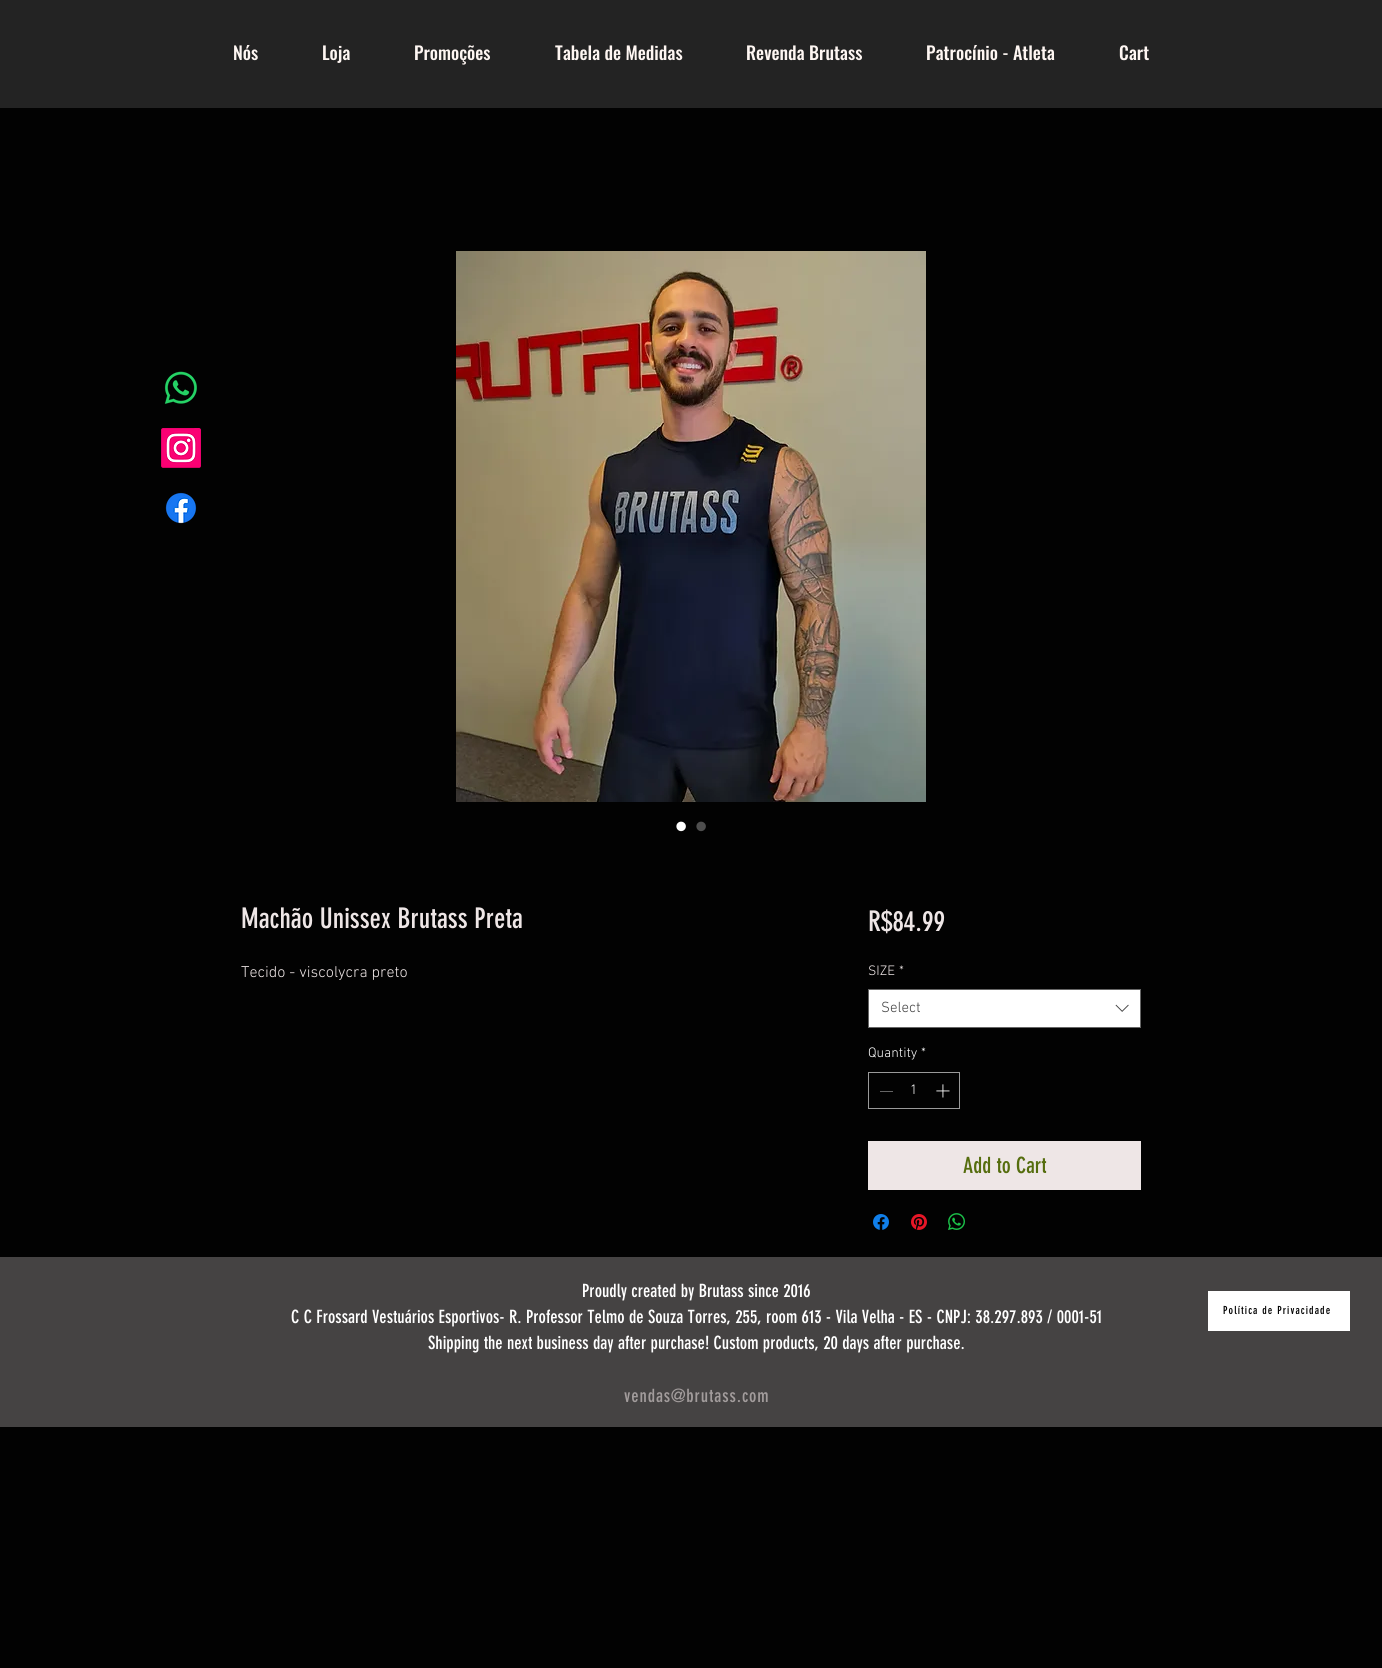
import math
import cairo

surface = cairo.ImageSurface(cairo.FORMAT_RGB24, 1382, 1668)
cr = cairo.Context(surface)
options = cairo.FontOptions()
options.set_hint_metrics(cairo.HINT_METRICS_OFF)
options.set_hint_style(cairo.HINT_STYLE_NONE)
cr.set_font_options(options)
cr.set_miter_limit(4)


def rgb(code):
    cr.set_source_rgb(*(v / 255 for v in bytes.fromhex(code[-6:])))


def tracked(x, y, s, letter, word):
    cr.move_to(x, y)
    for ch in s:
        cr.show_text(ch)
        cr.rel_move_to(letter + word * (ch == ' '), 0)


def image(path, x, y, w, h):
    cr.save()
    cr.set_source_surface(cairo.ImageSurface.create_from_png(path), x, y)
    cr.rectangle(x, y, w, h)
    cr.fill()
    cr.restore()


rgb("#020202")
cr.paint()
rgb("#232323")
cr.rectangle(0, 0, 1382, 108)
cr.fill()
image("img/1.png", 164, 371, 33, 33)
image("img/2.png", 161, 428, 40, 40)
image("img/3.png", 165, 492, 32, 32)
image("img/4.png", 456, 251, 470, 551)
rgb("#ffffff")
cr.rectangle(868.5, 989.5, 272, 38)
cr.fill_preserve()
rgb("#666666")
cr.set_line_width(1)
cr.stroke()
image("img/5.png", 1115, 1004, 14, 8)
cr.rectangle(868.5, 1072.5, 91, 36)
rgb("#9a9a9a")
cr.stroke()
rgb("#656565")
cr.rectangle(880, 1091, 13, 1)
cr.fill()
image("img/6.png", 936, 1084, 14, 14)
rgb("#eee6e6")
cr.rectangle(868, 1141, 273, 49)
cr.fill()
image("img/7.png", 873, 1214, 16, 16)
image("img/8.png", 911, 1214, 16, 16)
image("img/9.png", 948, 1213, 17, 17)
rgb("#454343")
cr.rectangle(0, 1257, 1382, 170)
cr.fill()
rgb("#ffffff")
cr.rectangle(1208, 1291, 142, 40)
cr.fill()
cr.select_font_face("Oswald Medium")
cr.set_font_size(18)
rgb("#fef6f2")
for x, y, s in [
    (233, 60, "Nós"),
    (322, 60, "Loja"),
    (414, 60, "Promoções"),
    (555, 60, "Tabela de Medidas"),
    (746, 60, "Revenda Brutass"),
    (926, 60, "Patrocínio - Atleta"),
    (1119, 60, "Cart"),
]:
    cr.move_to(x, y)
    cr.show_text(s)
cr.select_font_face("Liberation Sans")
cr.set_font_size(35)
rgb("#ffffff")
cr.move_to(675, 838)
cr.show_text("•")
rgb("#4e4e4e")
cr.move_to(695, 838)
cr.show_text("•")
cr.select_font_face("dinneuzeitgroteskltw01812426")
cr.set_font_size(28)
rgb("#eee6e6")
cr.move_to(241, 928)
cr.show_text("Machão Unissex Brutass Preta")
cr.select_font_face("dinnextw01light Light")
cr.set_font_size(16)
cr.move_to(241, 977)
cr.show_text("Tecido - viscolycra preto")
cr.select_font_face("dinneuzeitgroteskltw01812426")
cr.set_font_size(28)
cr.move_to(868, 931)
cr.show_text("R$84.99")
cr.select_font_face("dinnextw01light Light")
cr.set_font_size(14)
cr.move_to(868, 975)
cr.show_text("SIZE")
cr.move_to(899, 975)
cr.show_text("*")
cr.set_font_size(15)
rgb("#444444")
cr.move_to(881, 1012)
cr.show_text("Select")
cr.set_font_size(14)
rgb("#ffffff")
for x, y, s in [
    (868, 1057, "Quantity"),
    (921, 1057, "*"),
    (910, 1094, "1"),
]:
    cr.move_to(x, y)
    cr.show_text(s)
cr.select_font_face("dinneuzeitgroteskltw01812426")
cr.set_font_size(22)
rgb("#556d0e")
cr.move_to(963, 1173)
cr.show_text("Add to Cart")
cr.set_font_size(18)
rgb("#ffffff")
for x, y, s in [
    (582, 1297, "Proudly created by Brutass since 2016"),
    (291, 1323, "C C Frossard Vestuários Esportivos- R. Professor Telmo de Souza Torres, 255, room 613 - Vila Velha - ES - CNPJ: 38.297.893 / 0001-51"),
    (428, 1349, "Shipping the next business day after purchase! Custom products, 20 days after purchase."),
]:
    cr.move_to(x, y)
    cr.show_text(s)
rgb("#a29c9c")
tracked(624, 1402, "vendas@brutass.com", 0.9, 0)
cr.set_font_size(11)
rgb("#020202")
tracked(1223, 1314, "Política de Privacidade", 1.1, 0)
surface.write_to_png("page.png")
